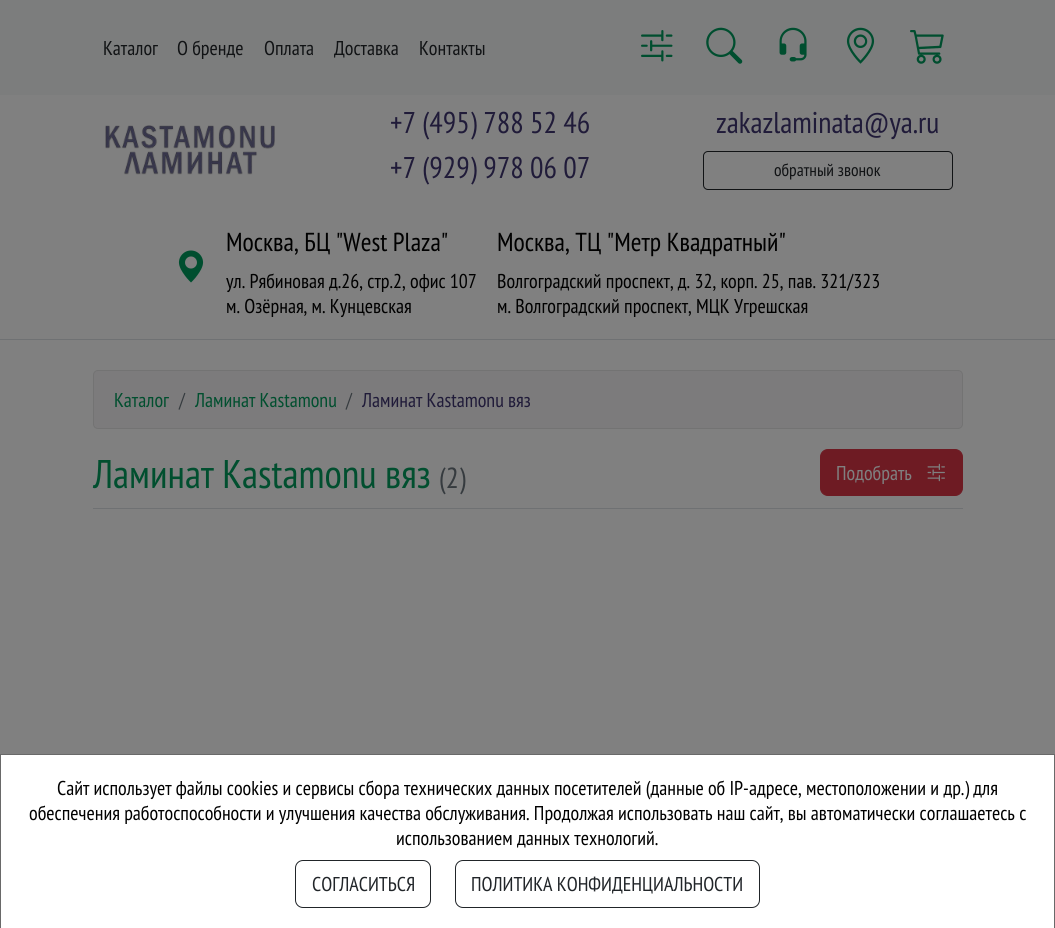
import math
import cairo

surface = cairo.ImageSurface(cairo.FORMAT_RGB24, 1055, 928)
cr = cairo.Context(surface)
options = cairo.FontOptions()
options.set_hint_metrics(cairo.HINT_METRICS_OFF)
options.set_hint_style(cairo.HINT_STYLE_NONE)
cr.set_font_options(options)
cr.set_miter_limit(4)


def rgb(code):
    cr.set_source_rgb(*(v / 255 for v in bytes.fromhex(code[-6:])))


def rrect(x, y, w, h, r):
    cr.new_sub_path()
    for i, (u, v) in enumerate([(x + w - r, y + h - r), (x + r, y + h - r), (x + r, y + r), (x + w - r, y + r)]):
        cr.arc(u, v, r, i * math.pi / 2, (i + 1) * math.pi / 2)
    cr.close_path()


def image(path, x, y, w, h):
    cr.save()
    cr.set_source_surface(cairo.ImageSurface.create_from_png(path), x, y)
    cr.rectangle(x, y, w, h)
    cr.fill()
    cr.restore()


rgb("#808080")
cr.paint()
rgb("#7c7d7d")
cr.rectangle(0, 0, 1055, 95)
cr.fill()
image("img/1.png", 641, 30, 32, 32)
image("img/2.png", 706, 27, 37, 37)
image("img/3.png", 779, 27, 28, 35)
image("img/4.png", 846, 27, 29, 37)
image("img/5.png", 910, 30, 34, 34)
rgb("#6f7173")
cr.rectangle(0, 339, 1055, 1)
cr.fill()
image("img/6.png", 105, 125, 170, 50)
rrect(703.5, 151.5, 249, 38, 4.5)
rgb("#111315")
cr.set_line_width(1)
cr.stroke()
image("img/7.png", 178, 250, 26, 33)
rgb("#7c7b7c")
rrect(93.5, 370.5, 869, 58, 4.5)
cr.fill_preserve()
rgb("#737373")
cr.stroke()
rgb("#6f7173")
cr.rectangle(93, 508, 870, 1)
cr.fill()
rgb("#6e1b23")
rrect(820.5, 449.5, 142, 46, 7.5)
cr.fill_preserve()
cr.stroke()
image("img/8.png", 927, 463, 18, 19)
rgb("#ffffff")
cr.rectangle(0.5, 754.5, 1054, 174)
cr.fill_preserve()
rgb("#696969")
cr.stroke()
rrect(295.5, 860.5, 135, 47, 7.5)
rgb("#212529")
cr.stroke()
rrect(455.5, 860.5, 304, 47, 7.5)
cr.stroke()
cr.select_font_face("PT Sans Narrow")
cr.set_font_size(20)
rgb("#111315")
for x, y, s in [
    (103, 55, "Каталог"),
    (177, 55, "О бренде"),
    (264, 55, "Оплата"),
    (334, 55, "Доставка"),
    (419, 55, "Контакты"),
]:
    cr.move_to(x, y)
    cr.show_text(s)
cr.set_font_size(30)
rgb("#201b39")
for x, y, s in [
    (390, 133, "+7 (495) 788 52 46"),
    (390, 178, "+7 (929) 978 06 07"),
    (716, 133, "zakazlaminata@ya.ru"),
]:
    cr.move_to(x, y)
    cr.show_text(s)
cr.set_font_size(17.5)
rgb("#111315")
cr.move_to(774, 176)
cr.show_text("обратный звонок")
cr.set_font_size(26)
rgb("#000000")
cr.move_to(226, 251)
cr.show_text("Москва, БЦ \"West Plaza\"")
cr.set_font_size(20)
cr.move_to(226, 288)
cr.show_text("ул. Рябиновая д.26, стр.2, офис 107")
cr.move_to(226, 313)
cr.show_text("м. Озёрная, м. Кунцевская")
cr.set_font_size(26)
cr.move_to(497, 251)
cr.show_text("Москва, ТЦ \"Метр Квадратный\"")
cr.set_font_size(20)
cr.move_to(497, 288)
cr.show_text("Волгоградский проспект, д. 32, корп. 25, пав. 321/323")
cr.move_to(497, 313)
cr.show_text("м. Волгоградский проспект, МЦК Угрешская")
rgb("#014f2f")
cr.move_to(114, 407)
cr.show_text("Каталог")
rgb("#363b3f")
cr.move_to(179, 407)
cr.show_text("/")
rgb("#014f2f")
cr.move_to(195, 407)
cr.show_text("Ламинат Kastamonu")
rgb("#363b3f")
cr.move_to(346, 407)
cr.show_text("/")
rgb("#201b39")
cr.move_to(362, 407)
cr.show_text("Ламинат Kastamonu вяз")
cr.set_font_size(40)
rgb("#014f2f")
cr.move_to(93, 488)
cr.show_text("Ламинат Kastamonu вяз")
cr.set_font_size(29)
rgb("#363b3f")
cr.move_to(439, 488)
cr.show_text("(2)")
cr.set_font_size(20)
rgb("#808080")
cr.move_to(836, 480)
cr.show_text("Подобрать")
rgb("#000000")
for x, y, s in [
    (57, 795, "Сайт использует файлы cookies и сервисы сбора технических данных посетителей (данные об IP-адресе, местоположении и др.) для"),
    (29, 820, "обеспечения работоспособности и улучшения качества обслуживания. Продолжая использовать наш сайт, вы автоматически соглашаетесь с"),
    (396, 845, "использованием данных технологий."),
]:
    cr.move_to(x, y)
    cr.show_text(s)
rgb("#212529")
cr.move_to(312, 891)
cr.show_text("СОГЛАСИТЬСЯ")
cr.move_to(471, 891)
cr.show_text("ПОЛИТИКА КОНФИДЕНЦИАЛЬНОСТИ")
surface.write_to_png("page.png")
